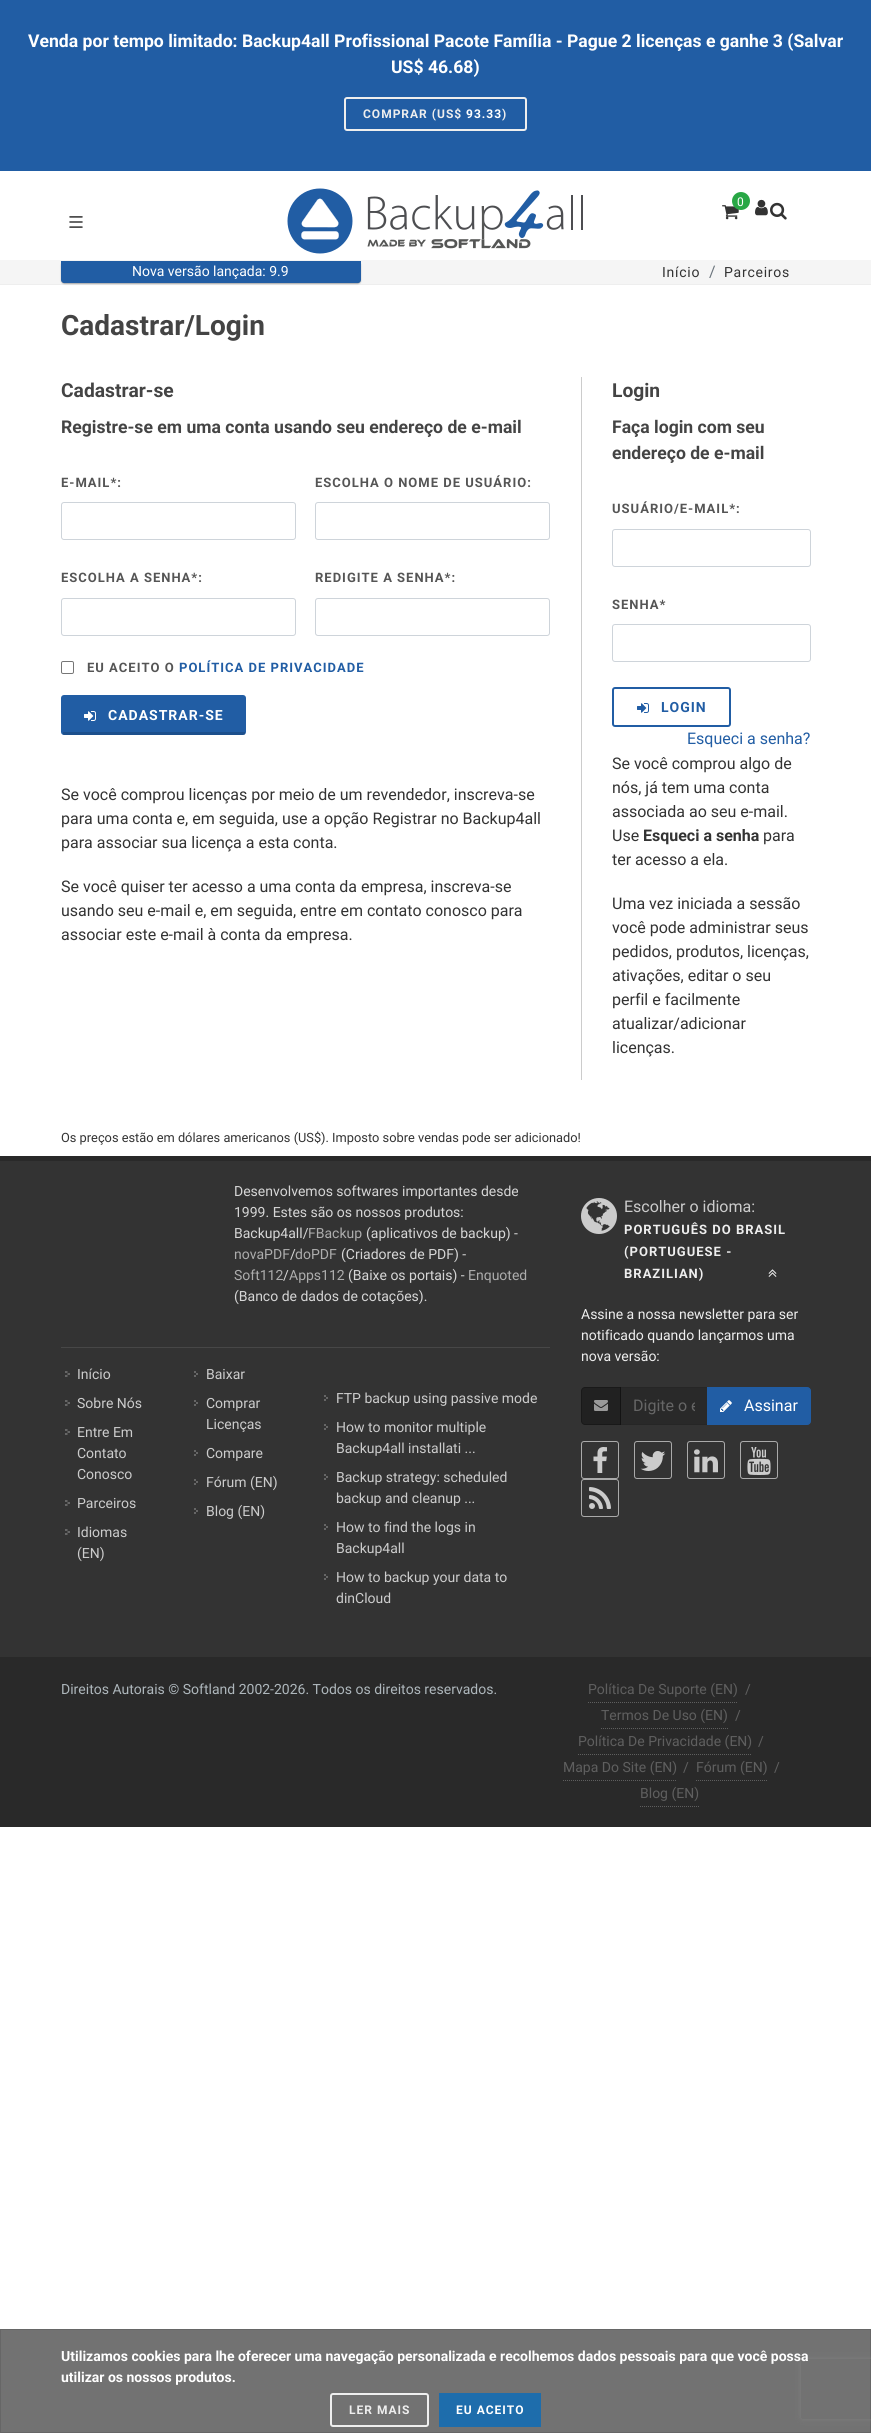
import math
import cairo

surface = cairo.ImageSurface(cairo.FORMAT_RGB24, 871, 2433)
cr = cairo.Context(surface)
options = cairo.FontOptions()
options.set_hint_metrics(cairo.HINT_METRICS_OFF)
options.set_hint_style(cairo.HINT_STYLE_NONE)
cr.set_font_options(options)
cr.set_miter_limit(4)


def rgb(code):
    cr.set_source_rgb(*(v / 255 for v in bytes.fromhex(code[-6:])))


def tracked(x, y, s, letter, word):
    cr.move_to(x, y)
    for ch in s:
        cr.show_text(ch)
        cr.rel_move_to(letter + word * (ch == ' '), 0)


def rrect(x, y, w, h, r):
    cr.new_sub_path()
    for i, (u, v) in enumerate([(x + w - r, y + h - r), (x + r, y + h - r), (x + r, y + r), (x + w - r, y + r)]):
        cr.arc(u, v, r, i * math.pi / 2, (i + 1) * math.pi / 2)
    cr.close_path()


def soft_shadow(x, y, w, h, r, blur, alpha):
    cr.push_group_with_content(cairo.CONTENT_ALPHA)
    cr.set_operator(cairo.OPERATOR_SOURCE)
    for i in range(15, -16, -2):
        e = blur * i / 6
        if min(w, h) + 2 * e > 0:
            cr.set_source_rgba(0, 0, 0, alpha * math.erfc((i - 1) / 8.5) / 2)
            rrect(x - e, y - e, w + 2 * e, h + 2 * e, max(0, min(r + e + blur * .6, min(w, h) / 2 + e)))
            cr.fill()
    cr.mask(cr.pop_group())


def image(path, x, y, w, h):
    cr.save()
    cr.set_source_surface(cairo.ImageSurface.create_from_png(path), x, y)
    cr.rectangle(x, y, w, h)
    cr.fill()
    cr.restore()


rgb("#ffffff")
cr.paint()
rgb("#215da4")
cr.rectangle(0, 0, 871, 171)
cr.fill()
rrect(345, 98, 181, 32, 2)
rgb("#eeeeee")
cr.stroke()
image("img/1.png", 287, 188, 66, 66)
image("img/2.png", 367, 190, 216, 59)
image("img/3.png", 722, 205, 17, 15)
rgb("#28a745")
cr.arc(741, 201, 9, 0, 2 * math.pi)
cr.fill()
image("img/4.png", 755, 199, 13, 17)
image("img/5.png", 770, 202, 17, 18)
image("img/6.png", 69, 216, 14, 12)
rgb("#f5f5f5")
cr.rectangle(0, 260, 871, 24)
cr.fill()
rgb("#eeeeee")
cr.rectangle(0, 284, 871, 1)
cr.fill()
rgb("#000000")
soft_shadow(62, 263, 298, 20, 2, 1, 0.75)
rgb("#215da4")
cr.new_path()
cr.move_to(61, 261)
cr.line_to(361, 261)
cr.line_to(361, 280)
cr.curve_to(361, 281.5, 359.5, 283, 358, 283)
cr.line_to(64, 283)
cr.curve_to(62.5, 283, 61, 281.5, 61, 280)
cr.close_path()
cr.fill()
rrect(61.5, 502.5, 234, 37, 2.5)
rgb("#ced4da")
cr.set_line_width(1)
cr.stroke()
rrect(315.5, 502.5, 234, 37, 2.5)
cr.stroke()
rrect(61.5, 598.5, 234, 37, 2.5)
cr.stroke()
rrect(315.5, 598.5, 234, 37, 2.5)
cr.stroke()
rrect(61.5, 661.5, 12, 12, 1.5)
rgb("#767676")
cr.stroke()
rgb("#215da4")
rrect(61, 695, 185, 40, 3)
cr.fill()
cr.set_source_rgba(0, 0, 0, 0.15)
cr.rectangle(63, 732, 182, 3)
cr.fill()
image("img/7.png", 84, 711, 12, 10)
rgb("#cccccc")
cr.rectangle(581, 377, 1, 703)
cr.fill()
rrect(612.5, 529.5, 198, 37, 2.5)
rgb("#ced4da")
cr.stroke()
rrect(612.5, 624.5, 198, 37, 2.5)
cr.stroke()
rrect(613, 688, 117, 38, 2)
rgb("#215da4")
cr.set_line_width(2)
cr.stroke()
image("img/8.png", 637, 703, 12, 10)
rgb("#727272")
cr.rectangle(0.5, 2329.5, 870, 103)
cr.fill_preserve()
rgb("#666666")
cr.set_line_width(1)
cr.stroke()
cr.save()
cr.set_fill_rule(cairo.FILL_RULE_EVEN_ODD)
cr.new_path()
cr.move_to(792, 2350)
cr.line_to(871, 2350)
cr.line_to(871, 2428)
cr.line_to(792, 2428)
cr.close_path()
cr.move_to(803, 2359)
cr.line_to(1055, 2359)
cr.curve_to(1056, 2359, 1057, 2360, 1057, 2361)
cr.line_to(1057, 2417)
cr.curve_to(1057, 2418, 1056, 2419, 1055, 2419)
cr.line_to(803, 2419)
cr.curve_to(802, 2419, 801, 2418, 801, 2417)
cr.line_to(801, 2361)
cr.curve_to(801, 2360, 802, 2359, 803, 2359)
cr.close_path()
cr.clip()
rgb("#808080")
soft_shadow(801, 2359, 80, 60, 2, 2.5, 1)
cr.restore()
for x, y, w, h, color in [
    (0, 1161, 871, 496, "#333333"),
    (0, 1156, 871, 5, "#292929"),
    (61, 1347, 489, 1, "#474747"),
]:
    rgb(color)
    cr.rectangle(x, y, w, h)
    cr.fill()
image("img/9.png", 65, 1371, 5, 6)
image("img/9.png", 65, 1400, 5, 6)
image("img/9.png", 65, 1429, 5, 6)
image("img/9.png", 65, 1500, 5, 6)
image("img/9.png", 65, 1529, 5, 6)
image("img/10.png", 194, 1371, 4, 6)
image("img/10.png", 194, 1400, 4, 6)
image("img/10.png", 194, 1450, 4, 6)
image("img/10.png", 194, 1479, 4, 6)
image("img/10.png", 194, 1508, 4, 6)
image("img/10.png", 324, 1395, 4, 6)
image("img/10.png", 324, 1424, 4, 6)
image("img/10.png", 324, 1474, 4, 6)
image("img/10.png", 324, 1524, 4, 6)
image("img/10.png", 324, 1574, 4, 6)
image("img/11.png", 581, 1198, 36, 36)
image("img/12.png", 768, 1269, 9, 8)
rgb("#212121")
cr.new_path()
cr.move_to(585, 1387)
cr.line_to(621, 1387)
cr.line_to(621, 1425)
cr.line_to(585, 1425)
cr.curve_to(583, 1425, 581, 1423, 581, 1421)
cr.line_to(581, 1391)
cr.curve_to(581, 1389, 583, 1387, 585, 1387)
cr.close_path()
cr.fill()
cr.new_path()
cr.move_to(585, 1387.5)
cr.line_to(620.5, 1387.5)
cr.line_to(620.5, 1424.5)
cr.line_to(585, 1424.5)
cr.curve_to(583, 1424.5, 581.5, 1423, 581.5, 1421)
cr.line_to(581.5, 1391)
cr.curve_to(581.5, 1389, 583, 1387.5, 585, 1387.5)
cr.close_path()
cr.set_source_rgba(0, 0, 0, 0.25)
cr.stroke()
image("img/13.png", 594, 1400, 14, 11)
rgb("#292929")
cr.rectangle(621, 1388, 86, 36)
cr.fill()
cr.rectangle(620.5, 1387.5, 87, 37)
cr.set_source_rgba(0, 0, 0, 0.25)
cr.stroke()
rgb("#215da4")
cr.new_path()
cr.move_to(707.5, 1387.5)
cr.line_to(807, 1387.5)
cr.curve_to(809, 1387.5, 810.5, 1389, 810.5, 1391)
cr.line_to(810.5, 1421)
cr.curve_to(810.5, 1423, 809, 1424.5, 807, 1424.5)
cr.line_to(707.5, 1424.5)
cr.close_path()
cr.fill_preserve()
cr.stroke()
image("img/14.png", 720, 1400, 12, 12)
rrect(581.5, 1441.5, 37, 37, 2.5)
rgb("#aaaaaa")
cr.stroke()
image("img/15.png", 593, 1447, 14, 26)
rrect(634.5, 1441.5, 37, 37, 2.5)
cr.stroke()
image("img/16.png", 640, 1451, 26, 20)
rrect(687.5, 1441.5, 37, 37, 2.5)
cr.stroke()
image("img/17.png", 694, 1449, 24, 24)
rrect(740.5, 1441.5, 37, 37, 2.5)
cr.stroke()
image("img/18.png", 747, 1447, 24, 28)
rrect(581.5, 1479.5, 37, 37, 2.5)
cr.stroke()
image("img/19.png", 589, 1487, 22, 22)
rgb("#292929")
cr.rectangle(0, 1657, 871, 170)
cr.fill()
cr.new_path()
cr.move_to(588, 1702.5)
cr.line_to(738, 1702.5)
rgb("#5f5f5f")
cr.set_dash([1, 1])
cr.stroke()
cr.new_path()
cr.move_to(601, 1728.5)
cr.line_to(728, 1728.5)
cr.stroke()
cr.new_path()
cr.move_to(578, 1754.5)
cr.line_to(752, 1754.5)
cr.stroke()
cr.new_path()
cr.move_to(563, 1780.5)
cr.line_to(677, 1780.5)
cr.stroke()
cr.new_path()
cr.move_to(696, 1780.5)
cr.line_to(767, 1780.5)
cr.stroke()
cr.new_path()
cr.move_to(640, 1806.5)
cr.line_to(699, 1806.5)
cr.stroke()
rrect(331, 2394, 97, 32, 2)
rgb("#efefef")
cr.set_line_width(2)
cr.set_dash([])
cr.stroke()
rgb("#1e6dac")
cr.rectangle(439, 2393, 102, 34)
cr.fill()
cr.select_font_face("Roboto", cairo.FONT_SLANT_NORMAL, cairo.FONT_WEIGHT_BOLD)
cr.set_font_size(17.6)
rgb("#ffffff")
cr.move_to(28, 47)
cr.show_text("Venda por tempo limitado: Backup4all Profissional Pacote Família - Pague 2 licenças e ganhe 3 (Salvar")
cr.move_to(391, 73)
cr.show_text("US$ 46.68)")
cr.set_font_size(12)
rgb("#eeeeee")
tracked(363, 118, "COMPRAR (US$", 1, 0)
rgb("#ffffff")
tracked(466, 118, "93.33", 1, 0)
rgb("#eeeeee")
tracked(502, 118, ")", 1, 0)
cr.select_font_face("Roboto")
rgb("#ffffff")
cr.move_to(737, 206)
cr.show_text("0")
cr.set_font_size(14)
cr.move_to(132, 276)
cr.show_text("Nova versão lançada: 9.9")
rgb("#333333")
tracked(662, 277, "Início", 0.75, 0)
cr.set_font_size(16)
rgb("#6c757d")
tracked(709, 277, "/", 0.75, 0)
cr.set_font_size(14)
rgb("#333333")
tracked(724, 277, "Parceiros", 0.75, 0)
cr.select_font_face("Roboto", cairo.FONT_SLANT_NORMAL, cairo.FONT_WEIGHT_BOLD)
cr.set_font_size(28)
rgb("#444444")
cr.move_to(61, 335)
cr.show_text("Cadastrar/Login")
cr.set_font_size(19.25)
cr.move_to(61, 397)
cr.show_text("Cadastrar-se")
cr.set_font_size(17.6)
cr.move_to(61, 433)
cr.show_text("Registre-se em uma conta usando seu endereço de e-mail")
cr.set_font_size(13)
rgb("#555555")
for x, y, s in [
    (61, 487, "E-MAIL*:"),
    (315, 487, "ESCOLHA O NOME DE USUÁRIO:"),
    (61, 582, "ESCOLHA A SENHA*:"),
    (315, 582, "REDIGITE A SENHA*:"),
    (87, 672, "EU ACEITO O"),
]:
    tracked(x, y, s, 1, 0)
rgb("#215da4")
tracked(179, 672, "POLÍTICA DE PRIVACIDADE", 1, 0)
cr.set_font_size(14)
rgb("#ffffff")
tracked(108, 720, "CADASTRAR-SE", 1, 0)
cr.select_font_face("Roboto")
cr.set_font_size(16)
rgb("#333333")
for x, y, s in [
    (61, 800, "Se você comprou licenças por meio de um revendedor, inscreva-se"),
    (61, 824, "para uma conta e, em seguida, use a opção Registrar no Backup4all"),
    (61, 848, "para associar sua licença a esta conta."),
    (61, 892, "Se você quiser ter acesso a uma conta da empresa, inscreva-se"),
    (61, 916, "usando seu e-mail e, em seguida, entre em contato conosco para"),
    (61, 940, "associar este e-mail à conta da empresa."),
]:
    cr.move_to(x, y)
    cr.show_text(s)
cr.select_font_face("Roboto", cairo.FONT_SLANT_NORMAL, cairo.FONT_WEIGHT_BOLD)
cr.set_font_size(19.25)
rgb("#444444")
cr.move_to(612, 397)
cr.show_text("Login")
cr.set_font_size(17.6)
cr.move_to(612, 433)
cr.show_text("Faça login com seu")
cr.move_to(612, 459)
cr.show_text("endereço de e-mail")
cr.set_font_size(13)
rgb("#555555")
tracked(612, 513, "USUÁRIO/E-MAIL*:", 1, 0)
tracked(612, 609, "SENHA*", 1, 0)
cr.set_font_size(14)
rgb("#215da4")
tracked(661, 712, "LOGIN", 1, 0)
cr.select_font_face("Roboto")
cr.set_font_size(16)
cr.move_to(687, 744)
cr.show_text("Esqueci a senha?")
rgb("#333333")
for x, y, s in [
    (612, 769, "Se você comprou algo de"),
    (612, 793, "nós, já tem uma conta"),
    (612, 817, "associada ao seu e-mail."),
    (612, 841, "Use"),
]:
    cr.move_to(x, y)
    cr.show_text(s)
cr.select_font_face("Roboto", cairo.FONT_SLANT_NORMAL, cairo.FONT_WEIGHT_BOLD)
cr.move_to(643, 841)
cr.show_text("Esqueci a senha")
cr.select_font_face("Roboto")
for x, y, s in [
    (763, 841, "para"),
    (612, 865, "ter acesso a ela."),
    (612, 909, "Uma vez iniciada a sessão"),
    (612, 933, "você pode administrar seus"),
    (612, 957, "pedidos, produtos, licenças,"),
    (612, 981, "ativações, editar o seu"),
    (612, 1005, "perfil e facilmente"),
    (612, 1029, "atualizar/adicionar"),
    (612, 1053, "licenças."),
]:
    cr.move_to(x, y)
    cr.show_text(s)
cr.set_font_size(12.8)
cr.move_to(61, 1142)
cr.show_text("Os preços estão em dólares americanos (US$). Imposto sobre vendas pode ser adicionado!")
cr.set_font_size(14)
rgb("#d6d6d6")
for x, y, s in [
    (234, 1196, "Desenvolvemos softwares importantes desde"),
    (234, 1217, "1999. Estes são os nossos produtos:"),
    (234, 1238, "Backup4all/"),
]:
    cr.move_to(x, y)
    cr.show_text(s)
rgb("#adadad")
cr.move_to(308, 1238)
cr.show_text("FBackup")
rgb("#d6d6d6")
cr.move_to(366, 1238)
cr.show_text("(aplicativos de backup) -")
rgb("#adadad")
cr.move_to(234, 1259)
cr.show_text("novaPDF")
rgb("#d6d6d6")
cr.move_to(290, 1259)
cr.show_text("/")
rgb("#adadad")
cr.move_to(295, 1259)
cr.show_text("doPDF")
rgb("#d6d6d6")
cr.move_to(341, 1259)
cr.show_text("(Criadores de PDF) -")
rgb("#adadad")
cr.move_to(234, 1280)
cr.show_text("Soft112")
rgb("#d6d6d6")
cr.move_to(283, 1280)
cr.show_text("/")
rgb("#adadad")
cr.move_to(289, 1280)
cr.show_text("Apps112")
rgb("#d6d6d6")
cr.move_to(348, 1280)
cr.show_text("(Baixe os portais) -")
rgb("#adadad")
cr.move_to(468, 1280)
cr.show_text("Enquoted")
rgb("#d6d6d6")
cr.move_to(234, 1301)
cr.show_text("(Banco de dados de cotações).")
rgb("#cccccc")
for x, y, s in [
    (77, 1379, "Início"),
    (77, 1408, "Sobre Nós"),
    (77, 1437, "Entre Em"),
    (77, 1458, "Contato"),
    (77, 1479, "Conosco"),
    (77, 1508, "Parceiros"),
    (77, 1537, "Idiomas"),
    (77, 1558, "(EN)"),
    (206, 1379, "Baixar"),
    (206, 1408, "Comprar"),
    (206, 1429, "Licenças"),
    (206, 1458, "Compare"),
    (206, 1487, "Fórum (EN)"),
    (206, 1516, "Blog (EN)"),
    (336, 1403, "FTP backup using passive mode"),
    (336, 1432, "How to monitor multiple"),
    (336, 1453, "Backup4all installati ..."),
    (336, 1482, "Backup strategy: scheduled"),
    (336, 1503, "backup and cleanup ..."),
    (336, 1532, "How to find the logs in"),
    (336, 1553, "Backup4all"),
    (336, 1582, "How to backup your data to"),
    (336, 1603, "dinCloud"),
]:
    cr.move_to(x, y)
    cr.show_text(s)
cr.set_font_size(16)
cr.move_to(624, 1212)
cr.show_text("Escolher o idioma:")
cr.select_font_face("Roboto", cairo.FONT_SLANT_NORMAL, cairo.FONT_WEIGHT_BOLD)
cr.set_font_size(13)
rgb("#eeeeee")
for x, y, s in [
    (624, 1234, "PORTUGUÊS DO BRASIL"),
    (624, 1256, "(PORTUGUESE -"),
    (624, 1278, "BRAZILIAN)"),
]:
    tracked(x, y, s, 1, 0)
cr.select_font_face("Roboto")
cr.set_font_size(14)
for x, y, s in [
    (581, 1319, "Assine a nossa newsletter para ser"),
    (581, 1340, "notificado quando lançarmos uma"),
    (581, 1361, "nova versão:"),
]:
    cr.move_to(x, y)
    cr.show_text(s)
cr.save()
cr.rectangle(633, 1396, 62, 19)
cr.clip()
cr.set_font_size(16)
rgb("#666666")
cr.move_to(633, 1411)
cr.show_text("Digite o e")
cr.restore()
cr.set_font_size(16)
rgb("#ffffff")
cr.move_to(744, 1411)
cr.show_text("Assinar")
cr.set_font_size(14)
rgb("#aeb7bc")
cr.move_to(61, 1694)
cr.show_text("Direitos Autorais © Softland 2002-2026. Todos os direitos reservados.")
rgb("#5f5f5f")
for x, y, s in [
    (588, 1694, "Política De Suporte (EN)"),
    (745, 1694, "/"),
    (601, 1720, "Termos De Uso (EN)"),
    (735, 1720, "/"),
    (578, 1746, "Política De Privacidade (EN)"),
    (758, 1746, "/"),
    (563, 1772, "Mapa Do Site (EN)"),
    (683, 1772, "/"),
    (696, 1772, "Fórum (EN)"),
    (774, 1772, "/"),
    (640, 1798, "Blog (EN)"),
]:
    cr.move_to(x, y)
    cr.show_text(s)
cr.select_font_face("Roboto", cairo.FONT_SLANT_NORMAL, cairo.FONT_WEIGHT_BOLD)
rgb("#ffffff")
cr.move_to(61, 2361)
cr.show_text("Utilizamos cookies para lhe oferecer uma navegação personalizada e recolhemos dados pessoais para que você possa")
cr.move_to(61, 2382)
cr.show_text("utilizar os nossos produtos.")
cr.set_font_size(12)
rgb("#eeeeee")
tracked(349, 2414, "LER MAIS", 1, 0)
rgb("#ffffff")
tracked(456, 2414, "EU ACEITO", 1, 0)
surface.write_to_png("page.png")
